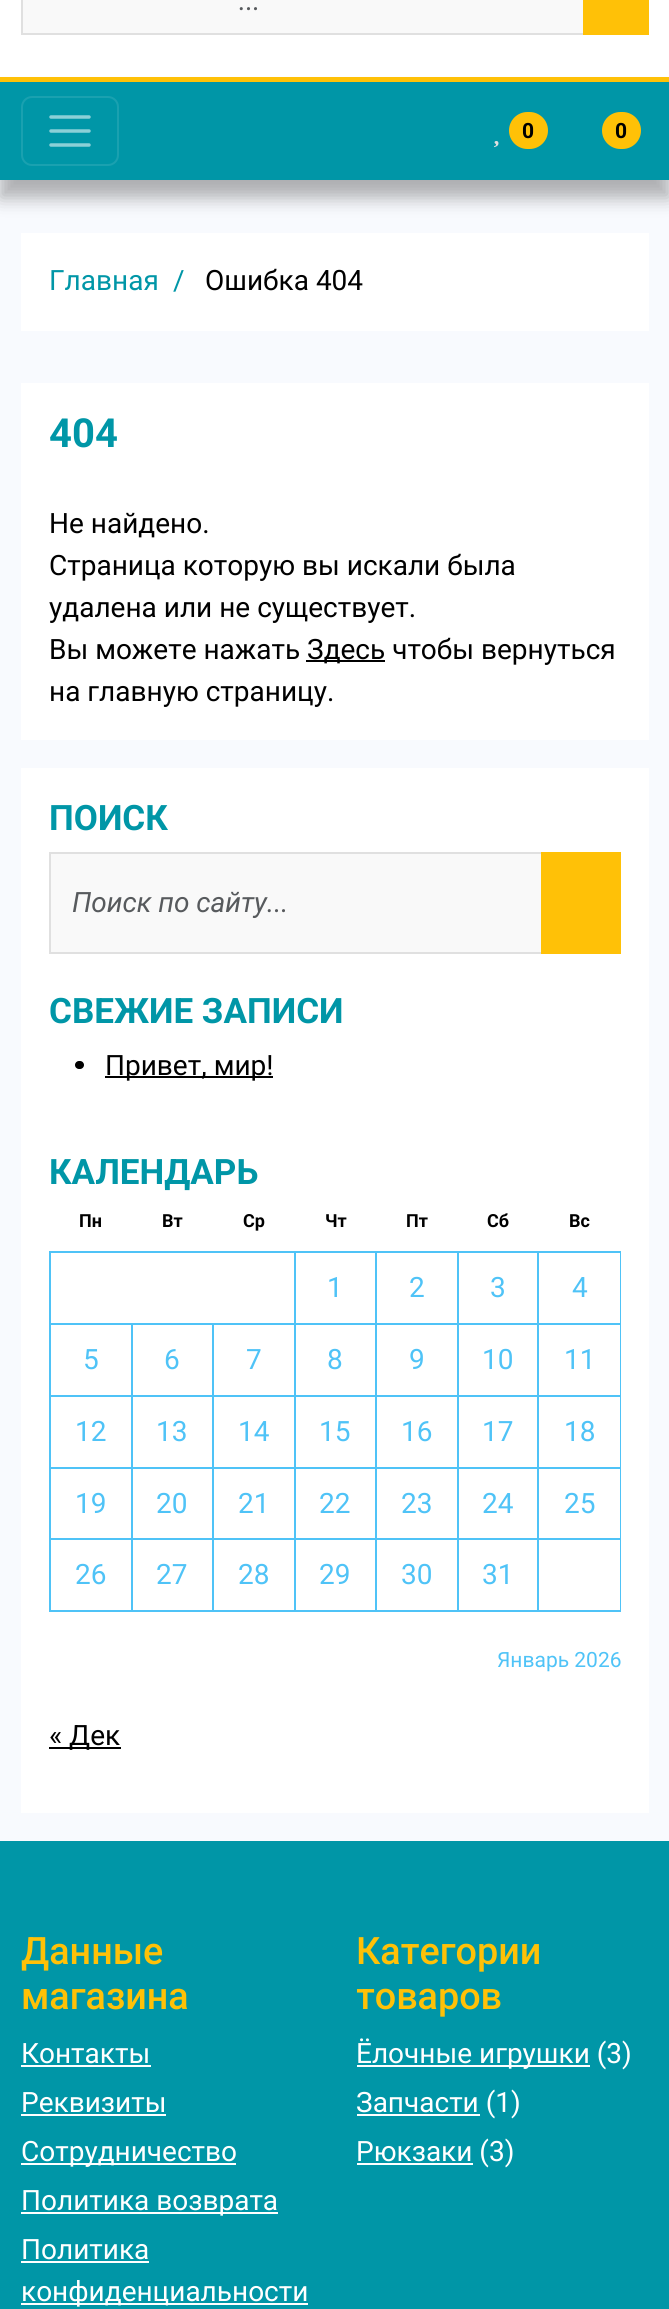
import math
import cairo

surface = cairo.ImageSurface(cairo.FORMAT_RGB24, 669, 2309)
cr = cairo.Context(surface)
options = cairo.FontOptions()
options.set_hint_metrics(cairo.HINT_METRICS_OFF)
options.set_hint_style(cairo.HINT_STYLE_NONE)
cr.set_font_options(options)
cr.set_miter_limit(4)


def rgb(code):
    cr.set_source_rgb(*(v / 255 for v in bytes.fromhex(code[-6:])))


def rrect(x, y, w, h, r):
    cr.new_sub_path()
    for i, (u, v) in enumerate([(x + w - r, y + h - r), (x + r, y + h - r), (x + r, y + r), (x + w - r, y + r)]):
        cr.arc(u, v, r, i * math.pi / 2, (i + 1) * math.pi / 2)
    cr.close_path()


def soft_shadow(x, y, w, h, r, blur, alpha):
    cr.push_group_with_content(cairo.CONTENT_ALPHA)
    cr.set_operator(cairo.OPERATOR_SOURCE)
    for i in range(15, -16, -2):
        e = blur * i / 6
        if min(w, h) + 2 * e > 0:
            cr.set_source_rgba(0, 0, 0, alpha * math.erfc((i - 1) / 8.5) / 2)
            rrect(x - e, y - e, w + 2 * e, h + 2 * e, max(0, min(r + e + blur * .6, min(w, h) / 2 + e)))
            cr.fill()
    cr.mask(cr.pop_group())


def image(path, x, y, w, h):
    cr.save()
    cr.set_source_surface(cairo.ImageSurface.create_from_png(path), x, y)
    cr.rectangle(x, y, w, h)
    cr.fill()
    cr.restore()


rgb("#f8fafe")
cr.paint()
rgb("#ffffff")
cr.rectangle(0, 0, 669, 77)
cr.fill()
rgb("#f9f9f9")
cr.rectangle(22, -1, 562, 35)
cr.fill_preserve()
rgb("#e0e0e0")
cr.stroke()
rgb("#ffc107")
cr.rectangle(583, 0, 66, 35)
cr.fill()
rgb("#000000")
soft_shadow(0, 95, 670, 103, 0, 9, 0.3)
rgb("#ffc107")
cr.rectangle(0, 77, 669, 5)
cr.fill()
rgb("#0096a7")
cr.rectangle(0, 82, 669, 98)
cr.fill()
rrect(22, 97, 96, 68, 10)
rgb("#1aa1b0")
cr.stroke()
cr.new_path()
cr.move_to(51, 117)
cr.line_to(89, 117)
cr.move_to(51, 131)
cr.line_to(89, 131)
cr.move_to(51, 145)
cr.line_to(89, 145)
rgb("#8cd0d7")
cr.set_line_width(3.5)
cr.set_line_cap(cairo.LINE_CAP_ROUND)
cr.stroke()
rgb("#ffc107")
rrect(509, 112, 39, 37, 18.5)
cr.fill()
image("img/1.png", 494, 141, 5, 7)
rrect(602, 112, 39, 37, 18.5)
cr.fill()
for x, y, w, h, color in [
    (21, 233, 628, 98, "#ffffff"),
    (21, 383, 628, 357, "#ffffff"),
    (306, 660, 79, 2, "#000000"),
    (21, 768, 628, 1045, "#ffffff"),
]:
    rgb(color)
    cr.rectangle(x, y, w, h)
    cr.fill()
rgb("#f9f9f9")
cr.rectangle(50, 853, 492, 100)
cr.fill_preserve()
rgb("#e0e0e0")
cr.set_line_width(2)
cr.set_line_cap(cairo.LINE_CAP_BUTT)
cr.stroke()
rgb("#ffc107")
cr.rectangle(541, 852, 80, 102)
cr.fill()
rgb("#000000")
rrect(75, 1061, 9, 8, 4)
cr.fill()
for x, y, w, h, color in [
    (105, 1076, 168, 2, "#000000"),
    (537, 1251, 84, 2, "#4fc3f7"),
    (537, 1323, 84, 2, "#4fc3f7"),
    (537, 1395, 84, 2, "#4fc3f7"),
    (537, 1467, 84, 2, "#4fc3f7"),
    (537, 1538, 84, 2, "#4fc3f7"),
    (620, 1538, 1, 74, "#4fc3f7"),
    (537, 1610, 84, 2, "#4fc3f7"),
    (537, 1538, 2, 74, "#4fc3f7"),
    (457, 1538, 82, 2, "#4fc3f7"),
    (537, 1467, 2, 73, "#4fc3f7"),
    (457, 1467, 82, 2, "#4fc3f7"),
    (537, 1395, 2, 73, "#4fc3f7"),
    (457, 1395, 82, 2, "#4fc3f7"),
    (537, 1323, 2, 74, "#4fc3f7"),
    (457, 1323, 82, 2, "#4fc3f7"),
    (537, 1251, 2, 74, "#4fc3f7"),
    (457, 1251, 82, 2, "#4fc3f7"),
    (457, 1610, 82, 2, "#4fc3f7"),
    (457, 1538, 2, 74, "#4fc3f7"),
    (375, 1538, 84, 2, "#4fc3f7"),
    (457, 1467, 2, 73, "#4fc3f7"),
    (375, 1467, 84, 2, "#4fc3f7"),
    (457, 1395, 2, 73, "#4fc3f7"),
    (375, 1395, 84, 2, "#4fc3f7"),
    (457, 1323, 2, 74, "#4fc3f7"),
    (375, 1323, 84, 2, "#4fc3f7"),
    (457, 1251, 2, 74, "#4fc3f7"),
    (375, 1251, 84, 2, "#4fc3f7"),
    (375, 1610, 84, 2, "#4fc3f7"),
    (375, 1538, 2, 74, "#4fc3f7"),
    (294, 1538, 82, 2, "#4fc3f7"),
    (375, 1467, 2, 73, "#4fc3f7"),
    (294, 1467, 82, 2, "#4fc3f7"),
    (375, 1395, 2, 73, "#4fc3f7"),
    (294, 1395, 82, 2, "#4fc3f7"),
    (375, 1323, 2, 74, "#4fc3f7"),
    (294, 1323, 82, 2, "#4fc3f7"),
    (375, 1251, 2, 74, "#4fc3f7"),
    (294, 1251, 82, 2, "#4fc3f7"),
    (294, 1610, 82, 2, "#4fc3f7"),
    (294, 1538, 2, 74, "#4fc3f7"),
    (212, 1538, 84, 2, "#4fc3f7"),
    (294, 1467, 2, 73, "#4fc3f7"),
    (212, 1467, 84, 2, "#4fc3f7"),
    (294, 1395, 2, 73, "#4fc3f7"),
    (212, 1395, 84, 2, "#4fc3f7"),
    (294, 1323, 2, 74, "#4fc3f7"),
    (212, 1323, 84, 2, "#4fc3f7"),
    (294, 1251, 2, 74, "#4fc3f7"),
    (49, 1251, 247, 2, "#4fc3f7"),
    (212, 1610, 84, 2, "#4fc3f7"),
    (212, 1538, 2, 74, "#4fc3f7"),
    (131, 1538, 83, 2, "#4fc3f7"),
    (212, 1467, 2, 73, "#4fc3f7"),
    (131, 1467, 83, 2, "#4fc3f7"),
    (212, 1395, 2, 73, "#4fc3f7"),
    (131, 1395, 83, 2, "#4fc3f7"),
    (212, 1323, 2, 74, "#4fc3f7"),
    (131, 1323, 83, 2, "#4fc3f7"),
    (131, 1610, 83, 2, "#4fc3f7"),
    (131, 1538, 2, 74, "#4fc3f7"),
    (49, 1538, 84, 2, "#4fc3f7"),
    (131, 1467, 2, 73, "#4fc3f7"),
    (49, 1467, 84, 2, "#4fc3f7"),
    (131, 1395, 2, 73, "#4fc3f7"),
    (49, 1395, 84, 2, "#4fc3f7"),
    (131, 1323, 2, 74, "#4fc3f7"),
    (49, 1323, 84, 2, "#4fc3f7"),
    (49, 1610, 84, 2, "#4fc3f7"),
    (49, 1538, 2, 74, "#4fc3f7"),
    (49, 1467, 2, 73, "#4fc3f7"),
    (49, 1395, 2, 73, "#4fc3f7"),
    (49, 1323, 2, 74, "#4fc3f7"),
    (49, 1251, 2, 74, "#4fc3f7"),
    (620, 1467, 1, 73, "#4fc3f7"),
    (620, 1395, 1, 73, "#4fc3f7"),
    (620, 1323, 1, 74, "#4fc3f7"),
    (620, 1251, 1, 74, "#4fc3f7"),
    (49, 1747, 72, 2, "#000000"),
    (0, 1841, 669, 468, "#0096a7"),
    (21, 2065, 130, 2, "#ffffff"),
    (21, 2114, 145, 2, "#ffffff"),
    (21, 2163, 215, 2, "#ffffff"),
    (21, 2212, 257, 2, "#ffffff"),
    (21, 2261, 128, 2, "#ffffff"),
    (21, 2303, 287, 2, "#ffffff"),
    (357, 2065, 233, 2, "#ffffff"),
    (357, 2114, 123, 2, "#ffffff"),
    (357, 2163, 116, 2, "#ffffff"),
]:
    rgb(color)
    cr.rectangle(x, y, w, h)
    cr.fill()
cr.select_font_face("Roboto", cairo.FONT_SLANT_ITALIC)
cr.set_font_size(28)
rgb("#575a5d")
cr.move_to(239, 10)
cr.show_text("...")
cr.select_font_face("Roboto", cairo.FONT_SLANT_NORMAL, cairo.FONT_WEIGHT_BOLD)
cr.set_font_size(21)
rgb("#000000")
cr.move_to(522, 138)
cr.show_text("0")
cr.move_to(615, 138)
cr.show_text("0")
cr.select_font_face("Roboto")
cr.set_font_size(28)
rgb("#0096a7")
cr.move_to(49, 290)
cr.show_text("Главная")
cr.move_to(173, 290)
cr.show_text("/")
rgb("#000000")
cr.move_to(205, 290)
cr.show_text("Ошибка 404")
cr.select_font_face("Roboto", cairo.FONT_SLANT_NORMAL, cairo.FONT_WEIGHT_BOLD)
cr.set_font_size(40)
rgb("#0096a7")
cr.move_to(49, 447)
cr.show_text("404")
cr.select_font_face("Roboto")
cr.set_font_size(28)
rgb("#000000")
for x, y, s in [
    (49, 533, "Не найдено."),
    (49, 575, "Страница которую вы искали была"),
    (49, 617, "удалена или не существует."),
    (49, 659, "Вы можете нажать"),
    (307, 659, "Здесь чтобы вернуться"),
    (49, 701, "на главную страницу."),
]:
    cr.move_to(x, y)
    cr.show_text(s)
cr.select_font_face("Roboto", cairo.FONT_SLANT_NORMAL, cairo.FONT_WEIGHT_BOLD)
cr.set_font_size(35)
rgb("#0096a7")
cr.move_to(49, 830)
cr.show_text("ПОИСК")
cr.select_font_face("Roboto", cairo.FONT_SLANT_ITALIC)
cr.set_font_size(28)
rgb("#575a5d")
cr.move_to(72, 912)
cr.show_text("Поиск по сайту...")
cr.select_font_face("Roboto", cairo.FONT_SLANT_NORMAL, cairo.FONT_WEIGHT_BOLD)
cr.set_font_size(35)
rgb("#0096a7")
cr.move_to(49, 1023)
cr.show_text("СВЕЖИЕ ЗАПИСИ")
cr.select_font_face("Roboto")
cr.set_font_size(28)
rgb("#000000")
cr.move_to(105, 1075)
cr.show_text("Привет, мир!")
cr.select_font_face("Roboto", cairo.FONT_SLANT_NORMAL, cairo.FONT_WEIGHT_BOLD)
cr.set_font_size(35)
rgb("#0096a7")
cr.move_to(49, 1184)
cr.show_text("КАЛЕНДАРЬ")
cr.set_font_size(18)
rgb("#000000")
for x, y, s in [
    (79, 1227, "Пн"),
    (162, 1227, "Вт"),
    (243, 1227, "Ср"),
    (325, 1227, "Чт"),
    (406, 1227, "Пт"),
    (487, 1227, "Сб"),
    (569, 1227, "Вс"),
]:
    cr.move_to(x, y)
    cr.show_text(s)
cr.select_font_face("Roboto")
cr.set_font_size(28)
rgb("#4fc3f7")
for x, y, s in [
    (327, 1297, "1"),
    (409, 1297, "2"),
    (490, 1297, "3"),
    (572, 1297, "4"),
    (83, 1369, "5"),
    (164, 1369, "6"),
    (246, 1369, "7"),
    (327, 1369, "8"),
    (409, 1369, "9"),
    (482, 1369, "10"),
    (564, 1369, "11"),
    (75, 1441, "12"),
    (156, 1441, "13"),
    (238, 1441, "14"),
    (319, 1441, "15"),
    (401, 1441, "16"),
    (482, 1441, "17"),
    (564, 1441, "18"),
    (75, 1513, "19"),
    (156, 1513, "20"),
    (238, 1513, "21"),
    (319, 1513, "22"),
    (401, 1513, "23"),
    (482, 1513, "24"),
    (564, 1513, "25"),
    (75, 1584, "26"),
    (156, 1584, "27"),
    (238, 1584, "28"),
    (319, 1584, "29"),
    (401, 1584, "30"),
    (482, 1584, "31"),
]:
    cr.move_to(x, y)
    cr.show_text(s)
cr.set_font_size(21)
cr.move_to(497, 1667)
cr.show_text("Январь 2026")
cr.set_font_size(28)
rgb("#000000")
cr.move_to(49, 1745)
cr.show_text("« Дек")
cr.select_font_face("Roboto Medium")
cr.set_font_size(37.75)
rgb("#ffc107")
cr.move_to(21, 1964)
cr.show_text("Данные")
cr.move_to(21, 2009)
cr.show_text("магазина")
cr.select_font_face("Roboto")
cr.set_font_size(28)
rgb("#ffffff")
for x, y, s in [
    (21, 2063, "Контакты"),
    (21, 2112, "Реквизиты"),
    (21, 2161, "Сотрудничество"),
    (21, 2210, "Политика возврата"),
    (21, 2259, "Политика"),
    (21, 2301, "конфиденциальности"),
]:
    cr.move_to(x, y)
    cr.show_text(s)
cr.select_font_face("Roboto Medium")
cr.set_font_size(37.75)
rgb("#ffc107")
cr.move_to(356, 1964)
cr.show_text("Категории")
cr.save()
cr.rectangle(357, 1929, 292, 280)
cr.clip()
cr.move_to(356, 2009)
cr.show_text("товаров")
cr.restore()
cr.select_font_face("Roboto")
cr.set_font_size(28)
rgb("#ffffff")
for x, y, s in [
    (356, 2063, "Ёлочные игрушки (3)"),
    (356, 2112, "Запчасти (1)"),
    (356, 2161, "Рюкзаки (3)"),
]:
    cr.move_to(x, y)
    cr.show_text(s)
surface.write_to_png("page.png")
